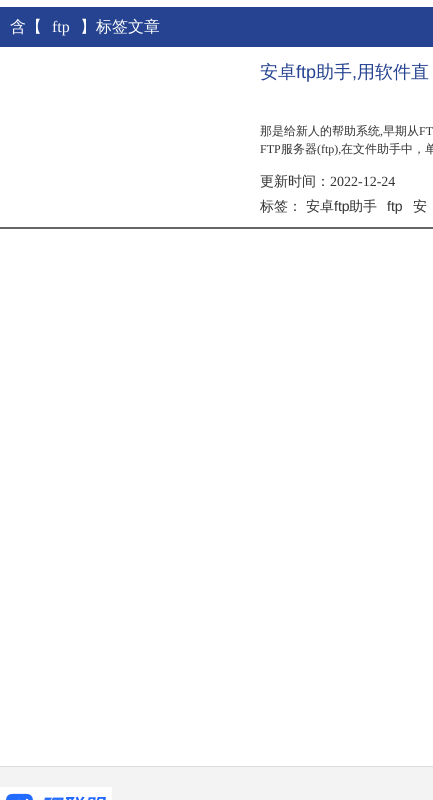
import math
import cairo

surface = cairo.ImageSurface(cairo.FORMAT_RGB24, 433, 800)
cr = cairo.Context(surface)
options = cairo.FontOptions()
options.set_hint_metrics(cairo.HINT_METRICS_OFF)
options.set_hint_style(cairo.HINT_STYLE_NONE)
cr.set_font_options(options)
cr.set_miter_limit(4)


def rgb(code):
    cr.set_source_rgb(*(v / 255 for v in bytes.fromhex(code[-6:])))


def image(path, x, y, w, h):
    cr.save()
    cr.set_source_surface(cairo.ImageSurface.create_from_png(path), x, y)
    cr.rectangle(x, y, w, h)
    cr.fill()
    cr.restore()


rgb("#ffffff")
cr.paint()
for x, y, w, h, color in [
    (0, 7, 433, 40, "#254390"),
    (0, 227, 433, 2, "#666666"),
    (0, 767, 433, 33, "#f3f3f3"),
    (0, 766, 433, 1, "#dddddd"),
]:
    rgb(color)
    cr.rectangle(x, y, w, h)
    cr.fill()
image("img/1.png", 0, 787, 112, 13)
cr.select_font_face("WenQuanYi Zen Hei Medium")
cr.set_font_size(16)
rgb("#ffffff")
cr.move_to(10, 32)
cr.show_text("含【")
cr.select_font_face("Liberation Serif")
cr.move_to(52, 32)
cr.show_text("ftp")
cr.select_font_face("WenQuanYi Zen Hei Medium")
cr.move_to(80, 32)
cr.show_text("】标签文章")
cr.set_font_size(18)
rgb("#254390")
cr.move_to(260, 78)
cr.show_text("安卓")
cr.select_font_face("Liberation Sans")
cr.move_to(296, 78)
cr.show_text("ftp")
cr.select_font_face("WenQuanYi Zen Hei Medium")
cr.move_to(316, 78)
cr.show_text("助手")
cr.select_font_face("Liberation Sans")
cr.move_to(352, 78)
cr.show_text(",")
cr.select_font_face("WenQuanYi Zen Hei Medium")
cr.move_to(357, 78)
cr.show_text("用软件直")
cr.set_font_size(12)
rgb("#333333")
cr.move_to(260, 135)
cr.show_text("那是给新人的帮助系统")
cr.select_font_face("Liberation Serif")
cr.move_to(380, 135)
cr.show_text(",")
cr.select_font_face("WenQuanYi Zen Hei Medium")
cr.move_to(383, 135)
cr.show_text("早期从")
cr.select_font_face("Liberation Serif")
cr.move_to(419, 135)
cr.show_text("FT")
cr.move_to(260, 153)
cr.show_text("FTP")
cr.select_font_face("WenQuanYi Zen Hei Medium")
cr.move_to(281, 153)
cr.show_text("服务器")
cr.select_font_face("Liberation Serif")
cr.move_to(317, 153)
cr.show_text("(ftp),")
cr.select_font_face("WenQuanYi Zen Hei Medium")
cr.move_to(341, 153)
cr.show_text("在文件助手中，单")
cr.set_font_size(14)
cr.move_to(260, 186)
cr.show_text("更新时间：")
cr.select_font_face("Liberation Serif")
cr.move_to(330, 186)
cr.show_text("2022-12-24")
cr.select_font_face("WenQuanYi Zen Hei Medium")
cr.move_to(260, 211)
cr.show_text("标签：")
cr.move_to(306, 211)
cr.show_text("安卓")
cr.select_font_face("Liberation Sans")
cr.move_to(334, 211)
cr.show_text("ftp")
cr.select_font_face("WenQuanYi Zen Hei Medium")
cr.move_to(349, 211)
cr.show_text("助手")
cr.select_font_face("Liberation Sans")
cr.move_to(387, 211)
cr.show_text("ftp")
cr.select_font_face("WenQuanYi Zen Hei Medium")
cr.move_to(413, 211)
cr.show_text("安")
surface.write_to_png("page.png")
